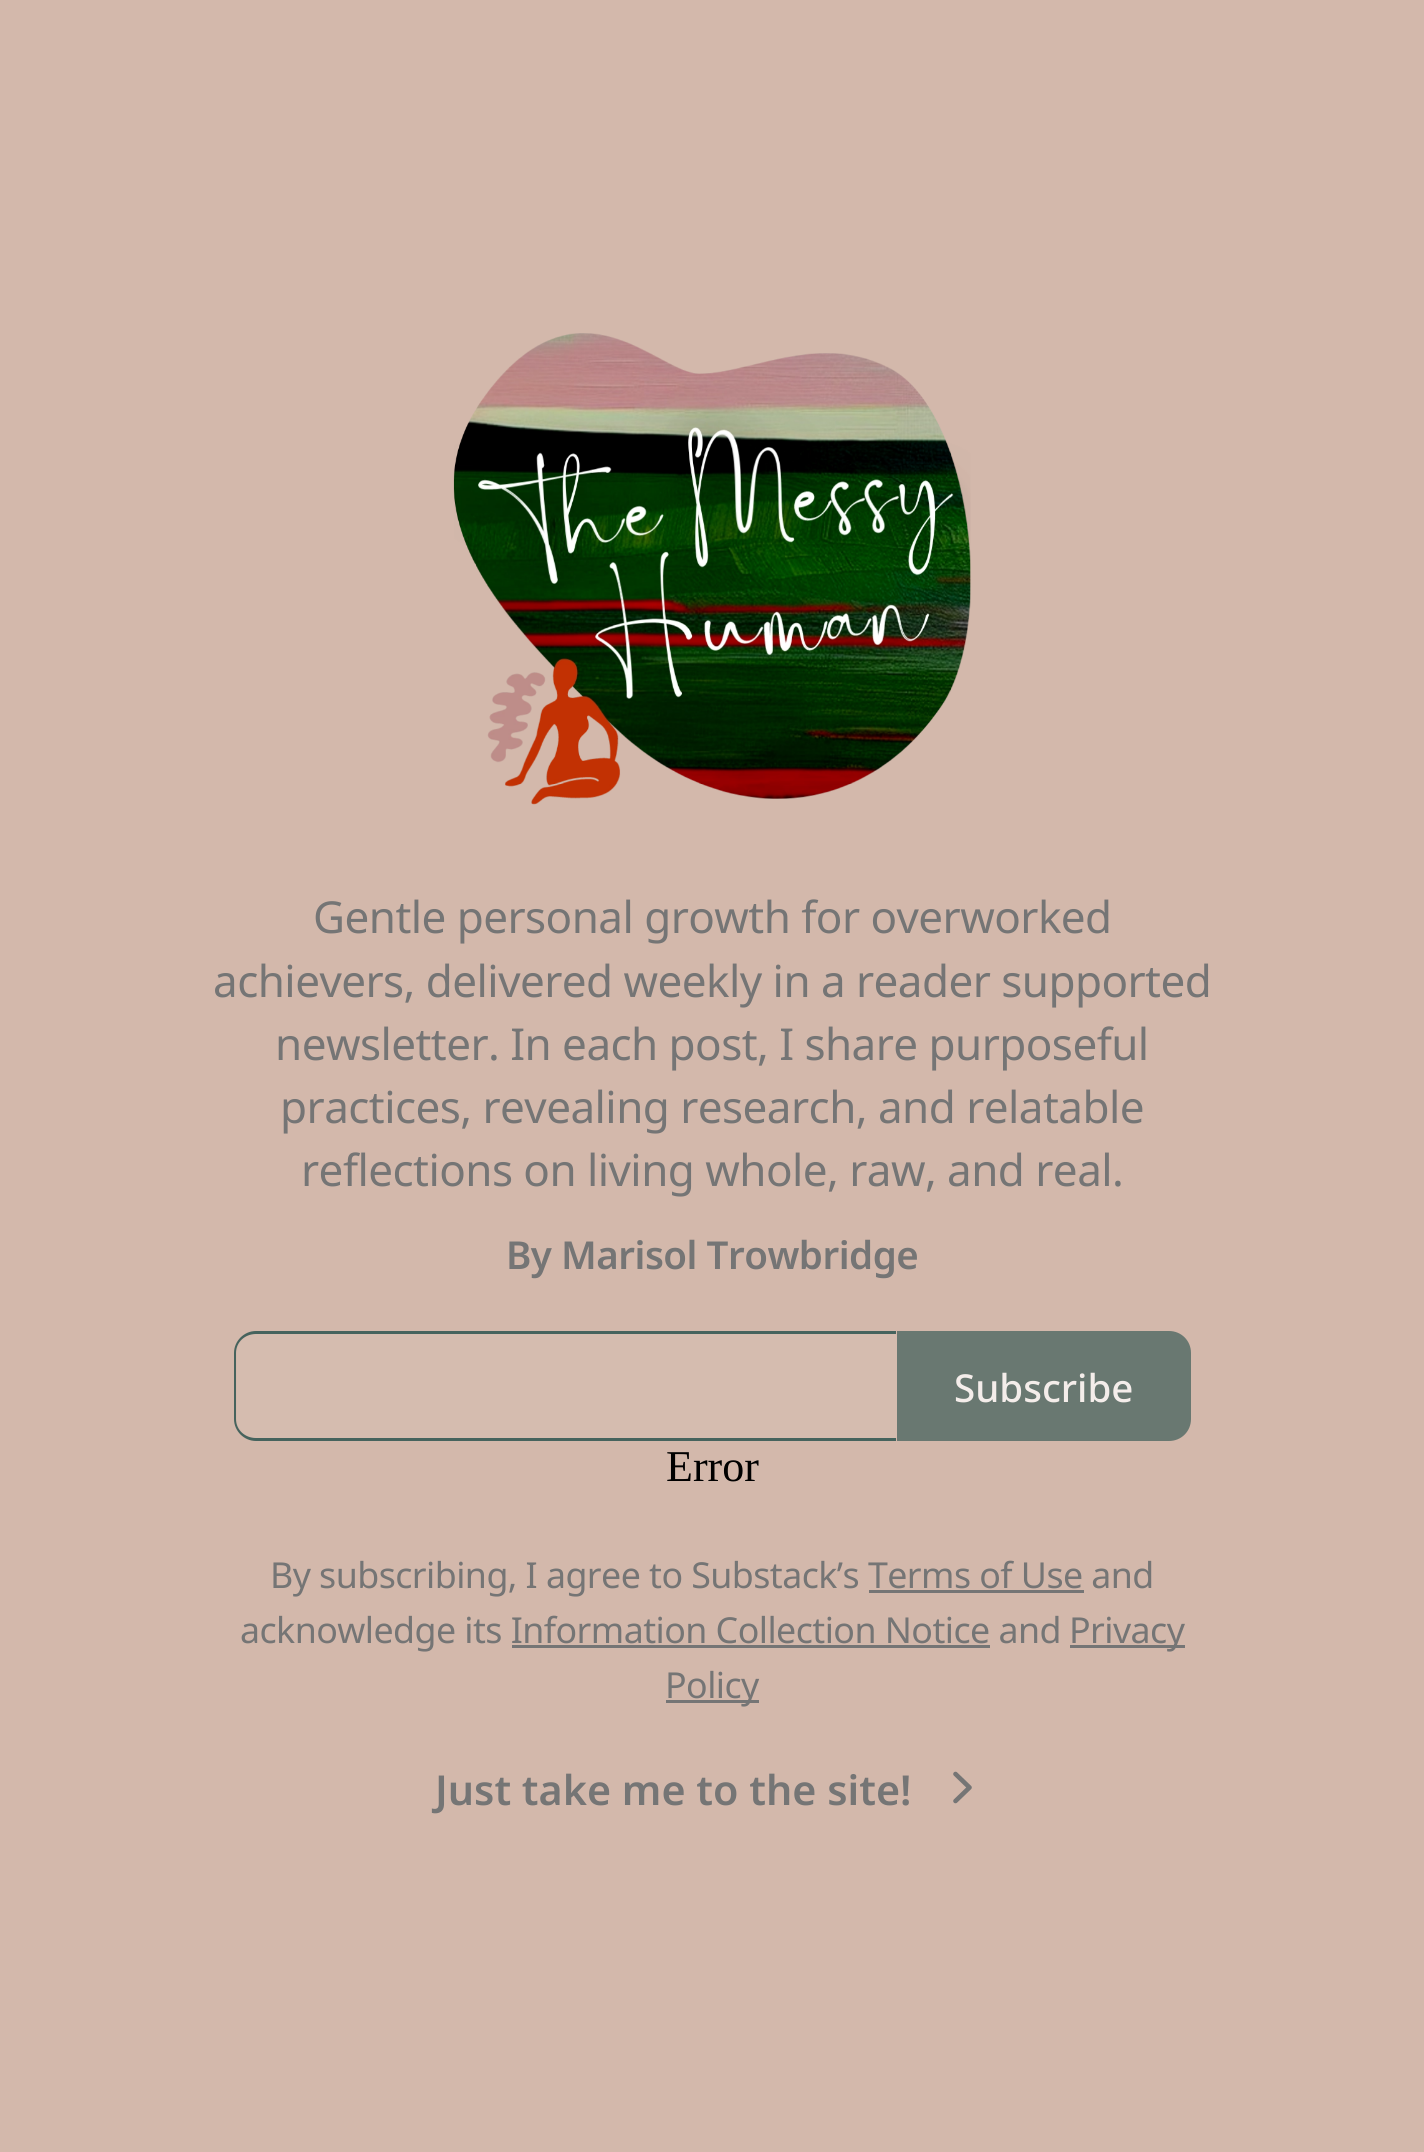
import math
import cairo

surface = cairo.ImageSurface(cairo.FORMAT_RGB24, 1424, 2152)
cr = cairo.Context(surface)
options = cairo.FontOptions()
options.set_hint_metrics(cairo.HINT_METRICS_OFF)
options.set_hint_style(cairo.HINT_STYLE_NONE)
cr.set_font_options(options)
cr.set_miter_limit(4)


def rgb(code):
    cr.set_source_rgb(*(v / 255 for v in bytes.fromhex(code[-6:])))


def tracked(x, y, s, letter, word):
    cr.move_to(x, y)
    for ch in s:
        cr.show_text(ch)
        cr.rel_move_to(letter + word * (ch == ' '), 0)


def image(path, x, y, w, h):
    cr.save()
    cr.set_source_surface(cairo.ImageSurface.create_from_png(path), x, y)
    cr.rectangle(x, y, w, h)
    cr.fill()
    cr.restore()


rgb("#d3b8ab")
cr.paint()
image("img/1.png", 453, 333, 518, 472)
rgb("#d5bcaf")
cr.new_path()
cr.move_to(256, 1334)
cr.line_to(897, 1334)
cr.line_to(897, 1438)
cr.line_to(256, 1438)
cr.curve_to(245.5, 1438, 237, 1429.5, 237, 1419)
cr.line_to(237, 1353)
cr.curve_to(237, 1342.5, 245.5, 1334, 256, 1334)
cr.close_path()
cr.fill()
rgb("#46635d")
cr.set_fill_rule(cairo.FILL_RULE_EVEN_ODD)
cr.new_path()
cr.move_to(256, 1331)
cr.line_to(896, 1331)
cr.line_to(896, 1441)
cr.line_to(256, 1441)
cr.curve_to(244, 1441, 234, 1431, 234, 1419)
cr.line_to(234, 1353)
cr.curve_to(234, 1341, 244, 1331, 256, 1331)
cr.close_path()
cr.move_to(256, 1334)
cr.line_to(896, 1334)
cr.line_to(896, 1438)
cr.line_to(256, 1438)
cr.curve_to(245, 1438, 236, 1430, 236, 1419)
cr.line_to(236, 1353)
cr.curve_to(236, 1342, 245, 1334, 256, 1334)
cr.close_path()
cr.fill()
rgb("#697871")
cr.new_path()
cr.move_to(898.5, 1332.5)
cr.line_to(1169, 1332.5)
cr.curve_to(1180.5, 1332.5, 1189.5, 1341.5, 1189.5, 1353)
cr.line_to(1189.5, 1419)
cr.curve_to(1189.5, 1430.5, 1180.5, 1439.5, 1169, 1439.5)
cr.line_to(898.5, 1439.5)
cr.close_path()
cr.fill_preserve()
cr.set_line_width(3)
cr.stroke()
for x, y, w, h, color in [
    (869, 1590, 215, 3, "#757575"),
    (1070, 1645, 115, 3, "#757575"),
    (512, 1645, 478, 3, "#757575"),
    (666, 1700, 93, 3, "#757575"),
]:
    rgb(color)
    cr.rectangle(x, y, w, h)
    cr.fill()
cr.new_path()
cr.move_to(955.5, 1801)
cr.line_to(969.5, 1787.5)
cr.line_to(955.5, 1774)
cr.set_line_width(4.6)
cr.set_line_cap(cairo.LINE_CAP_ROUND)
cr.set_line_join(cairo.LINE_JOIN_ROUND)
cr.stroke()
cr.select_font_face("Noto Sans")
cr.set_font_size(44)
for x, y, s in [
    (313, 933, "Gentle personal growth for overworked"),
    (213, 997, "achievers, delivered weekly in a reader supported"),
    (275, 1060, "newsletter. In each post, I share purposeful"),
    (280, 1123, "practices, revealing research, and relatable"),
    (301, 1186, "reflections on living whole, raw, and real."),
]:
    tracked(x, y, s, -0.55, 0)
cr.select_font_face("Noto Sans SemiBold")
cr.set_font_size(38.5)
tracked(506, 1269, "By Marisol Trowbridge", -0.5, 0)
cr.select_font_face("Noto Sans Medium")
rgb("#f4edea")
cr.move_to(954, 1402)
cr.show_text("Subscribe")
cr.select_font_face("Liberation Serif")
cr.set_font_size(44)
rgb("#000000")
cr.move_to(666, 1481)
cr.show_text("Error")
cr.select_font_face("Noto Sans")
cr.set_font_size(35.75)
rgb("#757575")
for x, y, s in [
    (270, 1588, "By subscribing, I agree to Substack’s Terms of Use and"),
    (240, 1643, "acknowledge its Information Collection Notice and"),
    (1069, 1643, "Privacy"),
    (665, 1698, "Policy"),
]:
    tracked(x, y, s, -0.55, 0)
cr.select_font_face("Noto Sans SemiBold")
cr.set_font_size(41.25)
cr.move_to(435, 1805)
cr.show_text("Just take me to the site!")
surface.write_to_png("page.png")
